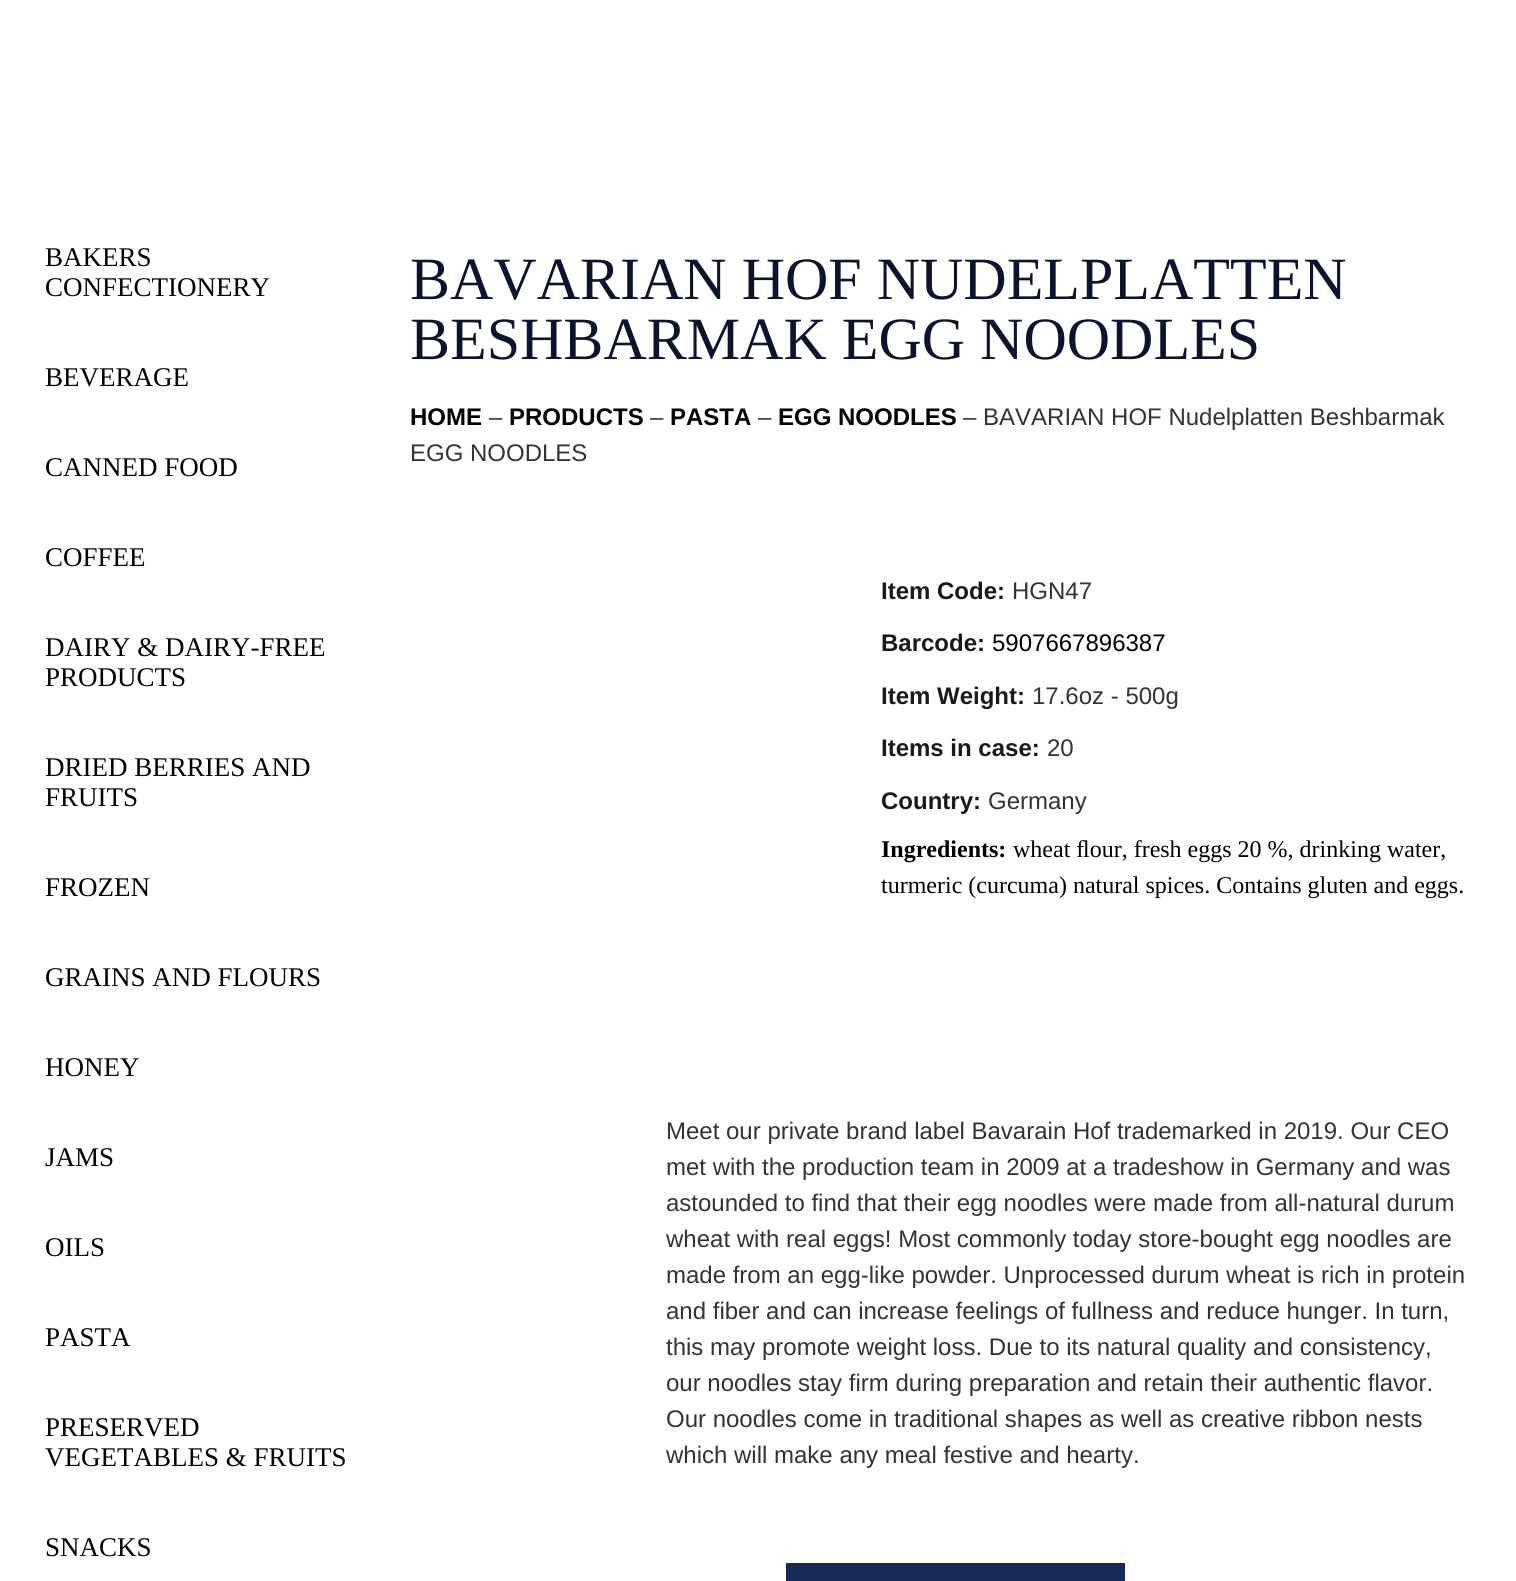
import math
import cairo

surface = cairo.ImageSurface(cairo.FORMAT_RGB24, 1516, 1581)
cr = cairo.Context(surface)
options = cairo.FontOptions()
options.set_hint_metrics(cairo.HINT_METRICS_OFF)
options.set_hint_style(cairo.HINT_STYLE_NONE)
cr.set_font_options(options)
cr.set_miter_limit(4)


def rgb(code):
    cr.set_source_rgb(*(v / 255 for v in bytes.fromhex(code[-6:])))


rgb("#ffffff")
cr.paint()
rgb("#192958")
cr.rectangle(786, 1563, 339, 18)
cr.fill()
cr.select_font_face("Liberation Serif")
cr.set_font_size(27)
rgb("#000000")
for x, y, s in [
    (45, 266, "BAKERS"),
    (45, 296, "CONFECTIONERY"),
    (45, 386, "BEVERAGE"),
    (45, 476, "CANNED FOOD"),
    (45, 566, "COFFEE"),
    (45, 656, "DAIRY & DAIRY-FREE"),
    (45, 686, "PRODUCTS"),
    (45, 776, "DRIED BERRIES AND"),
    (45, 806, "FRUITS"),
    (45, 896, "FROZEN"),
    (45, 986, "GRAINS AND FLOURS"),
    (45, 1076, "HONEY"),
    (45, 1166, "JAMS"),
    (45, 1256, "OILS"),
    (45, 1346, "PASTA"),
    (45, 1436, "PRESERVED"),
    (45, 1466, "VEGETABLES & FRUITS"),
    (45, 1556, "SNACKS"),
]:
    cr.move_to(x, y)
    cr.show_text(s)
cr.set_font_size(60)
rgb("#0d132c")
cr.move_to(410, 299)
cr.show_text("BAVARIAN HOF NUDELPLATTEN")
cr.move_to(410, 359)
cr.show_text("BESHBARMAK EGG NOODLES")
cr.select_font_face("Liberation Sans", cairo.FONT_SLANT_NORMAL, cairo.FONT_WEIGHT_BOLD)
cr.set_font_size(24)
rgb("#000000")
cr.move_to(410, 425)
cr.show_text("HOME")
cr.select_font_face("Liberation Sans")
rgb("#333333")
cr.move_to(489, 425)
cr.show_text("–")
cr.select_font_face("Liberation Sans", cairo.FONT_SLANT_NORMAL, cairo.FONT_WEIGHT_BOLD)
rgb("#000000")
cr.move_to(509, 425)
cr.show_text("PRODUCTS")
cr.select_font_face("Liberation Sans")
rgb("#333333")
cr.move_to(650, 425)
cr.show_text("–")
cr.select_font_face("Liberation Sans", cairo.FONT_SLANT_NORMAL, cairo.FONT_WEIGHT_BOLD)
rgb("#000000")
cr.move_to(670, 425)
cr.show_text("PASTA")
cr.select_font_face("Liberation Sans")
rgb("#333333")
cr.move_to(758, 425)
cr.show_text("–")
cr.select_font_face("Liberation Sans", cairo.FONT_SLANT_NORMAL, cairo.FONT_WEIGHT_BOLD)
rgb("#000000")
cr.move_to(778, 425)
cr.show_text("EGG NOODLES")
cr.select_font_face("Liberation Sans")
rgb("#333333")
cr.move_to(963, 425)
cr.show_text("– BAVARIAN HOF Nudelplatten Beshbarmak")
cr.move_to(410, 461)
cr.show_text("EGG NOODLES")
cr.select_font_face("Liberation Sans", cairo.FONT_SLANT_NORMAL, cairo.FONT_WEIGHT_BOLD)
rgb("#1a1a1a")
cr.move_to(881, 599)
cr.show_text("Item Code:")
cr.select_font_face("Liberation Sans")
rgb("#333333")
cr.move_to(1012, 599)
cr.show_text("HGN47")
cr.select_font_face("Liberation Sans", cairo.FONT_SLANT_NORMAL, cairo.FONT_WEIGHT_BOLD)
rgb("#1a1a1a")
cr.move_to(881, 651)
cr.show_text("Barcode:")
cr.select_font_face("Liberation Sans")
rgb("#000000")
cr.move_to(992, 651)
cr.show_text("5907667896387")
cr.select_font_face("Liberation Sans", cairo.FONT_SLANT_NORMAL, cairo.FONT_WEIGHT_BOLD)
rgb("#1a1a1a")
cr.move_to(881, 704)
cr.show_text("Item Weight:")
cr.select_font_face("Liberation Sans")
rgb("#333333")
cr.move_to(1032, 704)
cr.show_text("17.6oz - 500g")
cr.select_font_face("Liberation Sans", cairo.FONT_SLANT_NORMAL, cairo.FONT_WEIGHT_BOLD)
rgb("#1a1a1a")
cr.move_to(881, 756)
cr.show_text("Items in case:")
cr.select_font_face("Liberation Sans")
rgb("#333333")
cr.move_to(1047, 756)
cr.show_text("20")
cr.select_font_face("Liberation Sans", cairo.FONT_SLANT_NORMAL, cairo.FONT_WEIGHT_BOLD)
rgb("#1a1a1a")
cr.move_to(881, 809)
cr.show_text("Country:")
cr.select_font_face("Liberation Sans")
rgb("#333333")
cr.move_to(988, 809)
cr.show_text("Germany")
cr.select_font_face("Liberation Serif", cairo.FONT_SLANT_NORMAL, cairo.FONT_WEIGHT_BOLD)
rgb("#000000")
cr.move_to(881, 857)
cr.show_text("Ingredients:")
cr.select_font_face("Liberation Serif")
cr.move_to(1013, 857)
cr.show_text("wheat ﬂour, fresh eggs 20 %, drinking water,")
cr.move_to(881, 893)
cr.show_text("turmeric (curcuma) natural spices. Contains gluten and eggs.")
cr.select_font_face("Liberation Sans")
rgb("#333333")
for x, y, s in [
    (666, 1139, "Meet our private brand label Bavarain Hof trademarked in 2019. Our CEO"),
    (666, 1175, "met with the production team in 2009 at a tradeshow in Germany and was"),
    (666, 1211, "astounded to find that their egg noodles were made from all-natural durum"),
    (666, 1247, "wheat with real eggs! Most commonly today store-bought egg noodles are"),
    (666, 1283, "made from an egg-like powder. Unprocessed durum wheat is rich in protein"),
    (666, 1319, "and fiber and can increase feelings of fullness and reduce hunger. In turn,"),
    (666, 1355, "this may promote weight loss. Due to its natural quality and consistency,"),
    (666, 1391, "our noodles stay firm during preparation and retain their authentic flavor."),
    (666, 1427, "Our noodles come in traditional shapes as well as creative ribbon nests"),
    (666, 1463, "which will make any meal festive and hearty."),
]:
    cr.move_to(x, y)
    cr.show_text(s)
surface.write_to_png("page.png")
